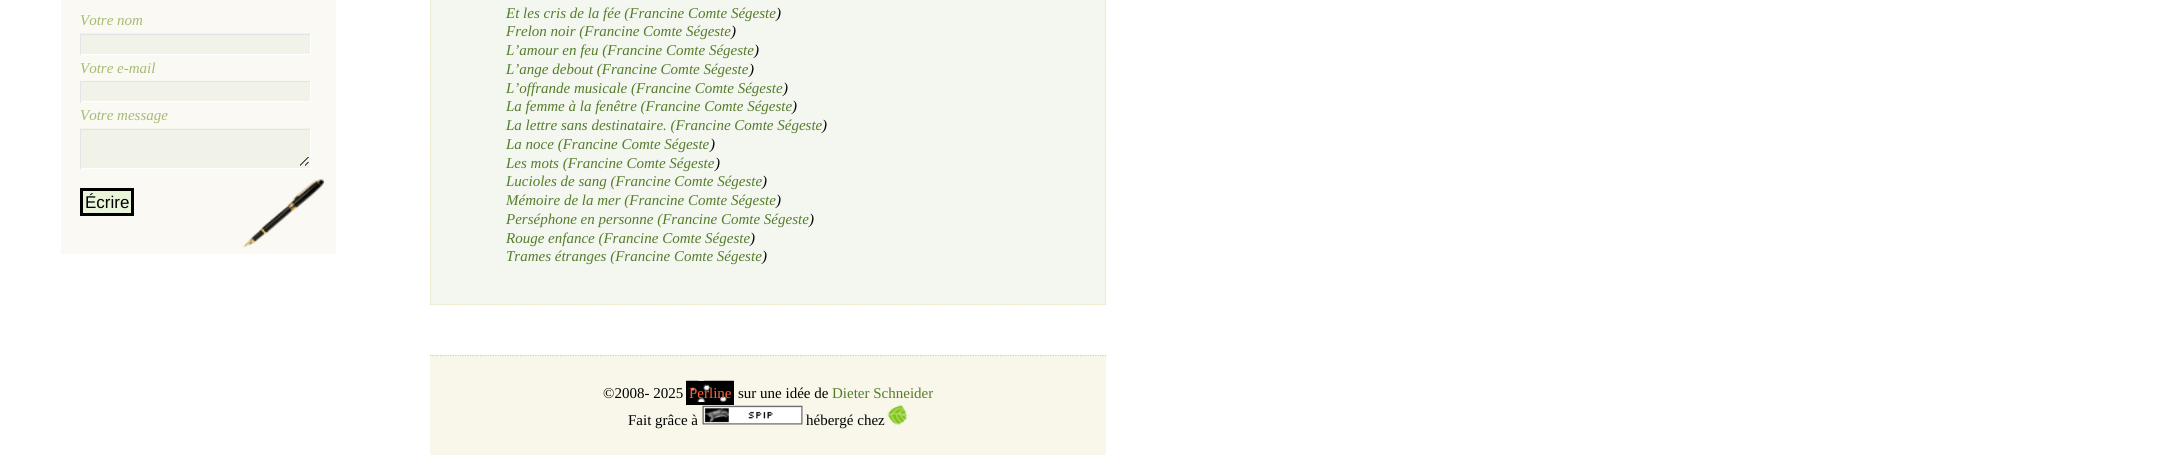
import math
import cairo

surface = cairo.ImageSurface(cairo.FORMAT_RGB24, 2160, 455)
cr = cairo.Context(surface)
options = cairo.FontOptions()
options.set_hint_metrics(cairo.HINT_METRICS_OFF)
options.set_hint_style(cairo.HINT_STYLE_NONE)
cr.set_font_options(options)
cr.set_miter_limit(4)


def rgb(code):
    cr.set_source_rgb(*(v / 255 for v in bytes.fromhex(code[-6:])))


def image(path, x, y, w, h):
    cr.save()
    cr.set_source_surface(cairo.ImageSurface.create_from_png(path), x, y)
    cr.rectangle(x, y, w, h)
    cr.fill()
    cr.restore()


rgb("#ffffff")
cr.paint()
rgb("#fbf9f4")
cr.rectangle(61, 0, 275, 254)
cr.fill()
image("img/1.png", 242, 179, 82, 69)
for x, y, w, h, color in [
    (80, 33, 231, 21, "#f1f2e8"),
    (80, 34, 231, 1, "#e3e4e9"),
    (310, 34, 1, 21, "#ffffff"),
    (80, 54, 231, 1, "#ffffff"),
    (80, 34, 1, 21, "#e3e4e9"),
    (81, 82, 229, 19, "#f1f2e8"),
    (80, 81, 231, 1, "#e3e4e9"),
    (310, 81, 1, 22, "#ffffff"),
    (80, 101, 231, 1, "#ffffff"),
    (80, 81, 1, 22, "#e3e4e9"),
]:
    rgb(color)
    cr.rectangle(x, y, w, h)
    cr.fill()
image("img/2.png", 80, 128, 231, 40)
for x, y, w, h, color in [
    (80, 129, 231, 1, "#e3e4e9"),
    (310, 129, 1, 40, "#ffffff"),
    (80, 168, 231, 1, "#ffffff"),
    (80, 129, 1, 40, "#e3e4e9"),
]:
    rgb(color)
    cr.rectangle(x, y, w, h)
    cr.fill()
rgb("#eaf4d9")
cr.rectangle(81.5, 189.5, 51, 25)
cr.fill_preserve()
rgb("#000000")
cr.set_line_width(3)
cr.stroke()
rgb("#f4f7f0")
cr.rectangle(430, 0, 676, 305)
cr.fill()
cr.new_path()
cr.move_to(1105.5, -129)
cr.line_to(1105.5, 305)
rgb("#ebe2b7")
cr.set_line_width(1.2)
cr.set_dash([1.25, 1.25])
cr.stroke()
cr.new_path()
cr.move_to(430, 304.5)
cr.line_to(1106, 304.5)
cr.stroke()
cr.new_path()
cr.move_to(430.5, -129)
cr.line_to(430.5, 305)
cr.stroke()
rgb("#f9f7ea")
cr.rectangle(430, 355, 676, 100)
cr.fill()
cr.new_path()
cr.move_to(430, 355.5)
cr.line_to(1106, 355.5)
rgb("#cccccc")
cr.stroke()
image("img/3.png", 686, 380, 48, 22)
cr.rectangle(687.5, 382.5, 45, 21)
rgb("#000000")
cr.set_line_width(3)
cr.set_dash([])
cr.stroke()
image("img/4.png", 702, 405, 101, 20)
image("img/5.png", 887, 404, 21, 21)
cr.select_font_face("Liberation Serif", cairo.FONT_SLANT_ITALIC)
cr.set_font_size(15)
rgb("#a5bb73")
for x, y, s in [
    (80, 25, "Votre nom"),
    (80, 73, "Votre e-mail"),
    (80, 120, "Votre message"),
]:
    cr.move_to(x, y)
    cr.show_text(s)
cr.select_font_face("Liberation Sans")
cr.set_font_size(17)
rgb("#000000")
cr.move_to(85, 208)
cr.show_text("Écrire")
cr.select_font_face("Liberation Serif", cairo.FONT_SLANT_ITALIC)
cr.set_font_size(15)
rgb("#557c2b")
cr.move_to(506, 18)
cr.show_text("Et les cris de la fée (Francine Comte Ségeste")
rgb("#000000")
cr.move_to(776, 18)
cr.show_text(")")
rgb("#557c2b")
cr.move_to(506, 36)
cr.show_text("Frelon noir (Francine Comte Ségeste")
rgb("#000000")
cr.move_to(731, 36)
cr.show_text(")")
rgb("#557c2b")
cr.move_to(506, 55)
cr.show_text("L’amour en feu (Francine Comte Ségeste")
rgb("#000000")
cr.move_to(754, 55)
cr.show_text(")")
rgb("#557c2b")
cr.move_to(506, 74)
cr.show_text("L’ange debout (Francine Comte Ségeste")
rgb("#000000")
cr.move_to(749, 74)
cr.show_text(")")
rgb("#557c2b")
cr.move_to(506, 93)
cr.show_text("L’offrande musicale (Francine Comte Ségeste")
rgb("#000000")
cr.move_to(783, 93)
cr.show_text(")")
rgb("#557c2b")
cr.move_to(506, 111)
cr.show_text("La femme à la fenêtre (Francine Comte Ségeste")
rgb("#000000")
cr.move_to(792, 111)
cr.show_text(")")
rgb("#557c2b")
cr.move_to(506, 130)
cr.show_text("La lettre sans destinataire. (Francine Comte Ségeste")
rgb("#000000")
cr.move_to(822, 130)
cr.show_text(")")
rgb("#557c2b")
cr.move_to(506, 149)
cr.show_text("La noce (Francine Comte Ségeste")
rgb("#000000")
cr.move_to(710, 149)
cr.show_text(")")
rgb("#557c2b")
cr.move_to(506, 168)
cr.show_text("Les mots (Francine Comte Ségeste")
rgb("#000000")
cr.move_to(715, 168)
cr.show_text(")")
rgb("#557c2b")
cr.move_to(506, 186)
cr.show_text("Lucioles de sang (Francine Comte Ségeste")
rgb("#000000")
cr.move_to(762, 186)
cr.show_text(")")
rgb("#557c2b")
cr.move_to(506, 205)
cr.show_text("Mémoire de la mer (Francine Comte Ségeste")
rgb("#000000")
cr.move_to(776, 205)
cr.show_text(")")
rgb("#557c2b")
cr.move_to(506, 224)
cr.show_text("Perséphone en personne (Francine Comte Ségeste")
rgb("#000000")
cr.move_to(809, 224)
cr.show_text(")")
rgb("#557c2b")
cr.move_to(506, 243)
cr.show_text("Rouge enfance (Francine Comte Ségeste")
rgb("#000000")
cr.move_to(750, 243)
cr.show_text(")")
rgb("#557c2b")
cr.move_to(506, 261)
cr.show_text("Trames étranges (Francine Comte Ségeste")
rgb("#000000")
cr.move_to(762, 261)
cr.show_text(")")
cr.select_font_face("Liberation Serif")
cr.move_to(603, 398)
cr.show_text("©2008- 2025")
rgb("#ff6633")
cr.move_to(689, 398)
cr.show_text("Perline")
rgb("#000000")
cr.move_to(738, 398)
cr.show_text("sur une idée de")
rgb("#557c2b")
cr.move_to(832, 398)
cr.show_text("Dieter Schneider")
rgb("#000000")
cr.move_to(628, 425)
cr.show_text("Fait grâce à")
cr.move_to(806, 425)
cr.show_text("hébergé chez")
surface.write_to_png("page.png")
